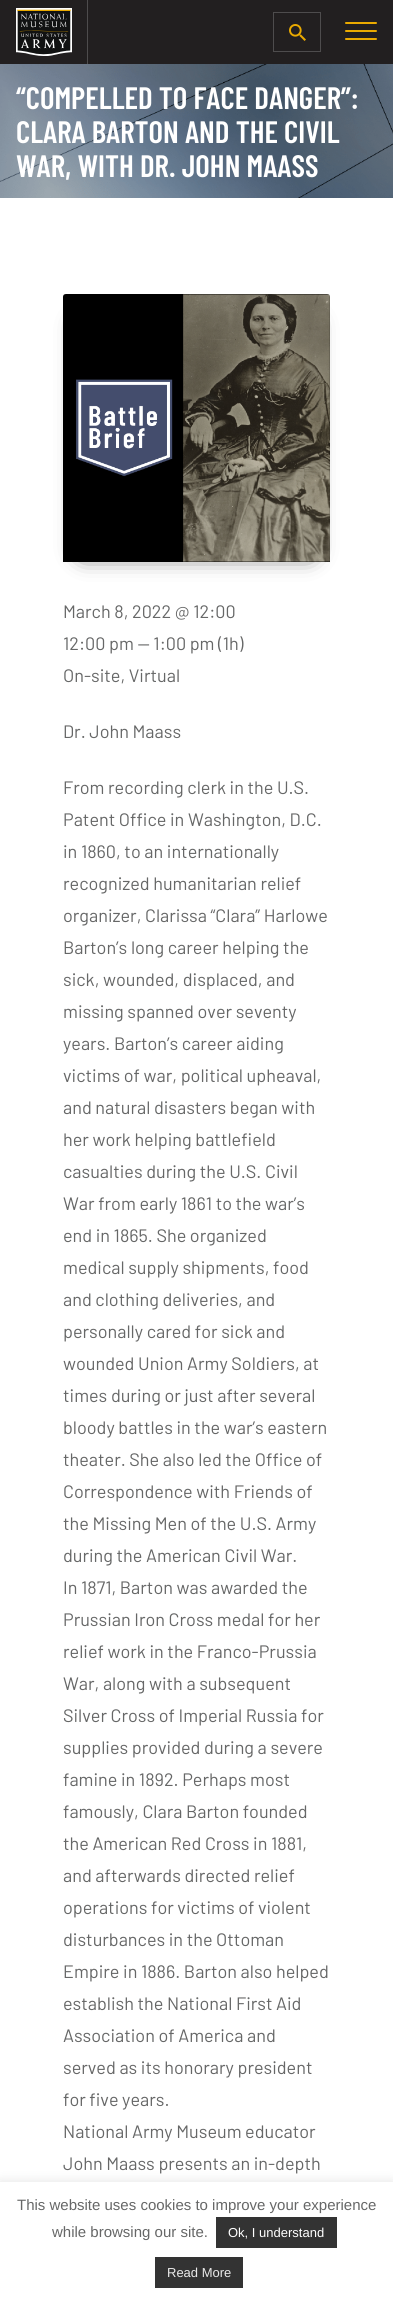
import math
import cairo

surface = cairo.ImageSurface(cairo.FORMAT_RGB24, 393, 2300)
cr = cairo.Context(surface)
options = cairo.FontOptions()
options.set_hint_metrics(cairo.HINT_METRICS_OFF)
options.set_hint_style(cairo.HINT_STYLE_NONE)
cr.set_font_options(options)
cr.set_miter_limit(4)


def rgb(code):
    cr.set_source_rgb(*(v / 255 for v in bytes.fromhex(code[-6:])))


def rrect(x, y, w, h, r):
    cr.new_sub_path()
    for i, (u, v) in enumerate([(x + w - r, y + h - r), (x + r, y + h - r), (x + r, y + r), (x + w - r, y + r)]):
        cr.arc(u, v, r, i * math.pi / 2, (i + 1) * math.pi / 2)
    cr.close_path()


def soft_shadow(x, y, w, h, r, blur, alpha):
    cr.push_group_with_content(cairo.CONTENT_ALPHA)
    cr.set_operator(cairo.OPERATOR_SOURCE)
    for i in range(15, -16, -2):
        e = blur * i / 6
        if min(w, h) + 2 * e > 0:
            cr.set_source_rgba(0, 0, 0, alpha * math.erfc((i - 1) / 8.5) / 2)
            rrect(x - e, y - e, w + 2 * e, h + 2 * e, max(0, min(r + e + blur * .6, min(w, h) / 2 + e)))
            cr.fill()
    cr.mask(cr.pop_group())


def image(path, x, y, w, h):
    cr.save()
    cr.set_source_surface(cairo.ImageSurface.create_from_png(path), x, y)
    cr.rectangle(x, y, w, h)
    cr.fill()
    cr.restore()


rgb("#ffffff")
cr.paint()
rgb("#221f20")
cr.rectangle(0, 0, 393, 64)
cr.fill()
rgb("#4e4c4d")
cr.rectangle(87, 0, 1, 64)
cr.fill()
image("img/1.png", 16, 8, 56, 48)
cr.rectangle(273.5, 12.5, 47, 39)
cr.set_line_width(1)
cr.stroke()
image("img/2.png", 289, 24, 17, 17)
rgb("#eaaa00")
rrect(345, 30, 32, 2, 1)
cr.fill()
rrect(345, 22, 32, 2, 1)
cr.fill()
rrect(345, 38, 32, 2, 1)
cr.fill()
image("img/3.png", 0, 64, 393, 134)
rgb("#000000")
soft_shadow(83, 324, 227, 228, 0, 12, 1)
image("img/4.png", 63, 294, 267, 268)
rgb("#acabab")
soft_shadow(0, 2181, 393, 118, 0, 5, 0.3)
for x, y, w, h, color in [
    (0, 2182, 393, 118, "#ffffff"),
    (216, 2217, 121, 31, "#333333"),
    (155, 2257, 88, 31, "#333333"),
]:
    rgb(color)
    cr.rectangle(x, y, w, h)
    cr.fill()
cr.select_font_face("Barlow Condensed SemiBold")
cr.set_font_size(31)
rgb("#ffffff")
for x, y, s in [
    (16, 109, "“COMPELLED TO FACE DANGER”:"),
    (16, 143, "CLARA BARTON AND THE CIVIL"),
    (16, 177, "WAR, WITH DR. JOHN MAASS"),
]:
    cr.move_to(x, y)
    cr.show_text(s)
cr.select_font_face("Barlow")
cr.set_font_size(18)
rgb("#666767")
for x, y, s in [
    (63, 618, "March 8, 2022 @ 12:00"),
    (63, 650, "12:00 pm — 1:00 pm (1h)"),
    (63, 682, "On-site, Virtual"),
    (63, 738, "Dr. John Maass"),
    (63, 794, "From recording clerk in the U.S."),
    (63, 826, "Patent Office in Washington, D.C."),
    (63, 858, "in 1860, to an internationally"),
    (63, 890, "recognized humanitarian relief"),
    (63, 922, "organizer, Clarissa “Clara” Harlowe"),
    (63, 954, "Barton’s long career helping the"),
    (63, 986, "sick, wounded, displaced, and"),
    (63, 1018, "missing spanned over seventy"),
    (63, 1050, "years. Barton’s career aiding"),
    (63, 1082, "victims of war, political upheaval,"),
    (63, 1114, "and natural disasters began with"),
    (63, 1146, "her work helping battlefield"),
    (63, 1178, "casualties during the U.S. Civil"),
    (63, 1210, "War from early 1861 to the war’s"),
    (63, 1242, "end in 1865. She organized"),
    (63, 1274, "medical supply shipments, food"),
    (63, 1306, "and clothing deliveries, and"),
    (63, 1338, "personally cared for sick and"),
    (63, 1370, "wounded Union Army Soldiers, at"),
    (63, 1402, "times during or just after several"),
    (63, 1434, "bloody battles in the war’s eastern"),
    (63, 1466, "theater. She also led the Office of"),
    (63, 1498, "Correspondence with Friends of"),
    (63, 1530, "the Missing Men of the U.S. Army"),
    (63, 1562, "during the American Civil War."),
    (63, 1594, "In 1871, Barton was awarded the"),
    (63, 1626, "Prussian Iron Cross medal for her"),
    (63, 1658, "relief work in the Franco-Prussia"),
    (63, 1690, "War, along with a subsequent"),
    (63, 1722, "Silver Cross of Imperial Russia for"),
    (63, 1754, "supplies provided during a severe"),
    (63, 1786, "famine in 1892. Perhaps most"),
    (63, 1818, "famously, Clara Barton founded"),
    (63, 1850, "the American Red Cross in 1881,"),
    (63, 1882, "and afterwards directed relief"),
    (63, 1914, "operations for victims of violent"),
    (63, 1946, "disturbances in the Ottoman"),
    (63, 1978, "Empire in 1886. Barton also helped"),
    (63, 2010, "establish the National First Aid"),
    (63, 2042, "Association of America and"),
    (63, 2074, "served as its honorary president"),
    (63, 2106, "for five years."),
    (63, 2138, "National Army Museum educator"),
    (63, 2170, "John Maass presents an in-depth"),
]:
    cr.move_to(x, y)
    cr.show_text(s)
cr.select_font_face("Liberation Sans")
cr.set_font_size(15)
cr.move_to(17, 2210)
cr.show_text("This website uses cookies to improve your experience")
cr.move_to(52, 2237)
cr.show_text("while browsing our site.")
cr.set_font_size(13)
rgb("#ffffff")
cr.move_to(228, 2237)
cr.show_text("Ok, I understand")
rgb("#eaeaea")
cr.move_to(167, 2277)
cr.show_text("Read More")
surface.write_to_png("page.png")
